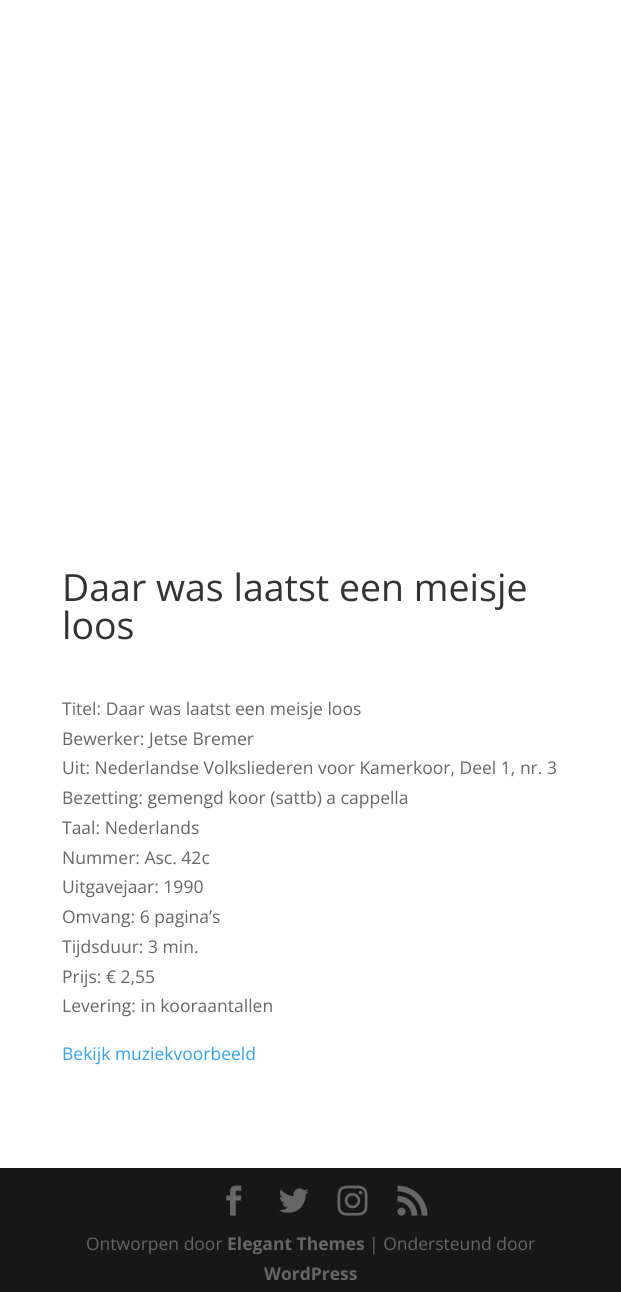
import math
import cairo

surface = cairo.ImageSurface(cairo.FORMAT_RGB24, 621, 1292)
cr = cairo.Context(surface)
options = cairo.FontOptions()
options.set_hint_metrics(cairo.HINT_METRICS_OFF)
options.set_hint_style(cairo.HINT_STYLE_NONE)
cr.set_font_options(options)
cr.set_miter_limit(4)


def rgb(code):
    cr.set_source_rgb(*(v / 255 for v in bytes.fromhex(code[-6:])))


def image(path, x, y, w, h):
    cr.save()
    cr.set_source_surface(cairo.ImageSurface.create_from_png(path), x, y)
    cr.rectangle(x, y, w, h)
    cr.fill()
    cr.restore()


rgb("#ffffff")
cr.paint()
rgb("#171717")
cr.rectangle(0, 1168, 621, 124)
cr.fill()
image("img/1.png", 226, 1185, 16, 31)
image("img/2.png", 279, 1188, 30, 25)
image("img/3.png", 337, 1185, 31, 31)
image("img/4.png", 397, 1185, 31, 31)
cr.select_font_face("Open Sans")
cr.set_font_size(37.5)
rgb("#333333")
cr.move_to(62, 601)
cr.show_text("Daar was laatst een meisje")
cr.move_to(62, 639)
cr.show_text("loos")
cr.set_font_size(17.5)
rgb("#666666")
for x, y, s in [
    (62, 715, "Titel: Daar was laatst een meisje loos"),
    (62, 745, "Bewerker: Jetse Bremer"),
    (62, 774, "Uit: Nederlandse Volksliederen voor Kamerkoor, Deel 1, nr. 3"),
    (62, 804, "Bezetting: gemengd koor (sattb) a cappella"),
    (62, 834, "Taal: Nederlands"),
    (62, 864, "Nummer: Asc. 42c"),
    (62, 893, "Uitgavejaar: 1990"),
    (62, 923, "Omvang: 6 pagina’s"),
    (62, 953, "Tijdsduur: 3 min."),
    (62, 983, "Prijs: € 2,55"),
    (62, 1012, "Levering: in kooraantallen"),
]:
    cr.move_to(x, y)
    cr.show_text(s)
rgb("#2ea3f2")
cr.move_to(62, 1060)
cr.show_text("Bekijk muziekvoorbeeld")
rgb("#666666")
cr.move_to(86, 1250)
cr.show_text("Ontworpen door")
cr.select_font_face("Open Sans", cairo.FONT_SLANT_NORMAL, cairo.FONT_WEIGHT_BOLD)
cr.move_to(227, 1250)
cr.show_text("Elegant Themes")
cr.select_font_face("Open Sans")
cr.move_to(369, 1250)
cr.show_text("| Ondersteund door")
cr.select_font_face("Open Sans", cairo.FONT_SLANT_NORMAL, cairo.FONT_WEIGHT_BOLD)
cr.move_to(264, 1280)
cr.show_text("WordPress")
surface.write_to_png("page.png")
